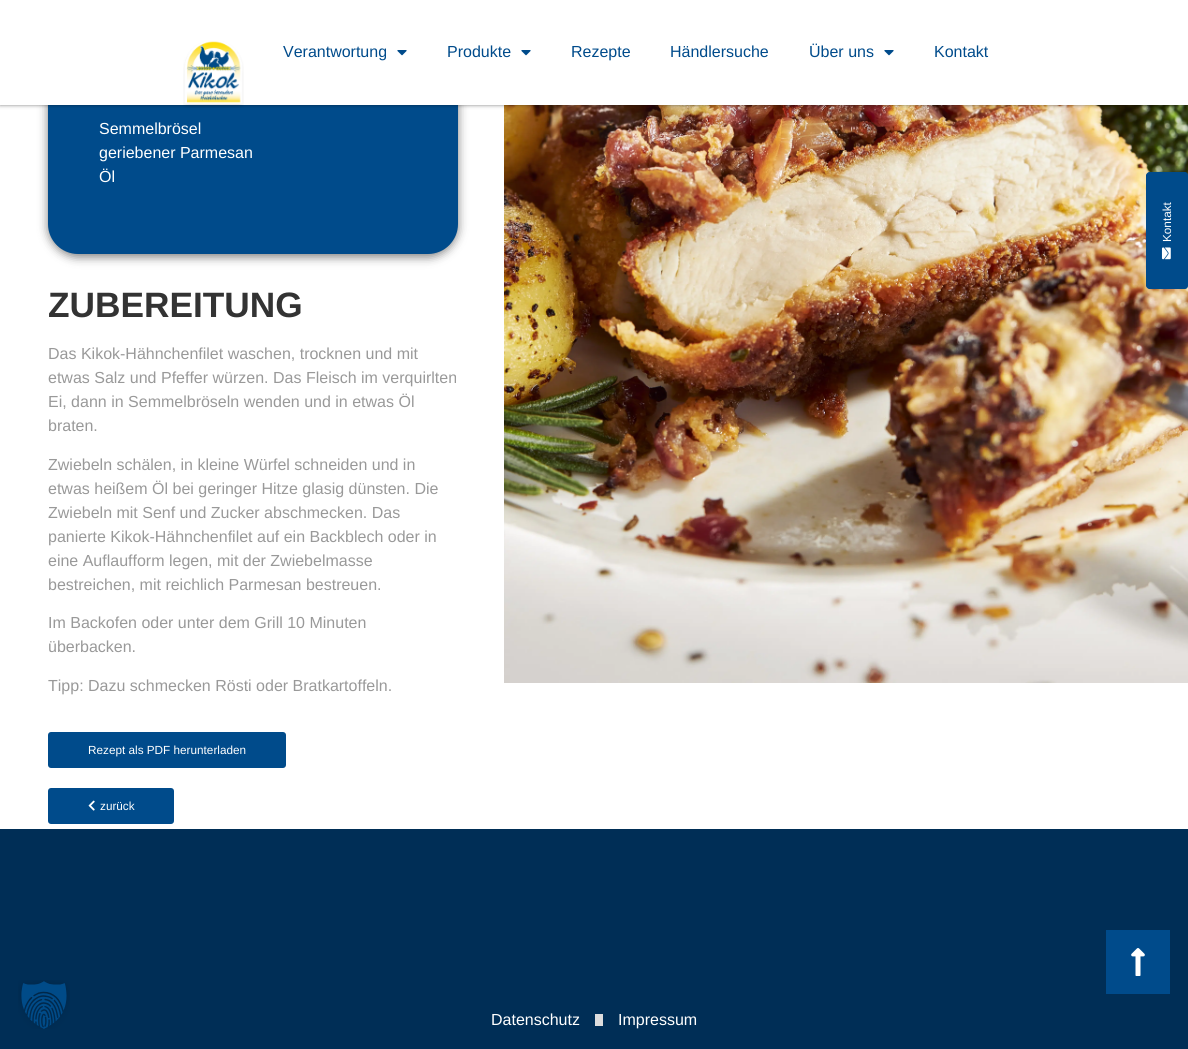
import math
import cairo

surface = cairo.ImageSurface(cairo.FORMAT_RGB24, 1188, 1049)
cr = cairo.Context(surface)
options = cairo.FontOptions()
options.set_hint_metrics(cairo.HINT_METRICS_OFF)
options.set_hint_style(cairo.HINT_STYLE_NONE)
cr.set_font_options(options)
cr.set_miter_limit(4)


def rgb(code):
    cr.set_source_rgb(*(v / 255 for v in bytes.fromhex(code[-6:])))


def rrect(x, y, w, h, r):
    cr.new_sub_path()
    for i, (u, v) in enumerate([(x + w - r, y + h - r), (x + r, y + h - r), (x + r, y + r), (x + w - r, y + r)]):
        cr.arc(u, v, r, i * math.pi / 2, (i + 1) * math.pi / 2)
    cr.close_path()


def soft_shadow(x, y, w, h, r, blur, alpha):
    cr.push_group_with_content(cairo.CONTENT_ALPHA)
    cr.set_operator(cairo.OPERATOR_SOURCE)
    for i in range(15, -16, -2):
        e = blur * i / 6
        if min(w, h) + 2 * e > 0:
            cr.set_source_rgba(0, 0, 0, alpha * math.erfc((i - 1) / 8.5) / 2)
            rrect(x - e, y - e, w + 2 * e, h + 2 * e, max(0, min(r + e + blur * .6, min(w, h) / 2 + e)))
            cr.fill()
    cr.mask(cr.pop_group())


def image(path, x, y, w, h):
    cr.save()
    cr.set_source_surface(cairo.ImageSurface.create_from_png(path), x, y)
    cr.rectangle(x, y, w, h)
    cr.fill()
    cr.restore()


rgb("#ffffff")
cr.paint()
rgb("#000000")
soft_shadow(48, -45, 410, 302, 30, 5, 0.5)
rgb("#004b8b")
rrect(48, -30, 410, 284, 30)
cr.fill()
image("img/4.png", 504, 105, 684, 578)
rgb("#000000")
soft_shadow(0, 0, 1188, 105, 0, 2, 0.5)
rgb("#ffffff")
cr.rectangle(0, 0, 1188, 105)
cr.fill()
image("img/1.png", 183, 41, 61, 67)
image("img/2.png", 397, 50, 10, 6)
image("img/2.png", 521, 50, 10, 6)
image("img/2.png", 884, 50, 10, 6)
rgb("#004b8b")
rrect(48, 732, 238, 36, 3)
cr.fill()
rrect(48, 788, 126, 36, 3)
cr.fill()
image("img/3.png", 88, 800, 7, 11)
cr.new_path()
cr.move_to(1146, 286)
cr.line_to(1146, 175)
cr.curve_to(1146, 174, 1148, 172, 1149, 172)
cr.line_to(1185, 172)
cr.curve_to(1187, 172, 1188, 174, 1188, 175)
cr.line_to(1188, 286)
cr.curve_to(1188, 287, 1187, 289, 1185, 289)
cr.line_to(1149, 289)
cr.curve_to(1148, 289, 1146, 287, 1146, 286)
cr.close_path()
cr.fill()
image("img/5.png", 1161, 247, 10, 13)
rgb("#002e56")
cr.rectangle(0, 829, 1188, 220)
cr.fill()
rgb("#004b8b")
cr.rectangle(1106, 930, 64, 64)
cr.fill()
image("img/6.png", 1131, 948, 14, 28)
image("img/7.png", 18, 980, 52, 49)
rgb("#dddddd")
cr.rectangle(595, 1014, 8, 12)
cr.fill()
cr.select_font_face("Liberation Sans")
cr.set_font_size(16)
rgb("#004b8b")
for x, y, s in [
    (283, 57, "Verantwortung"),
    (447, 57, "Produkte"),
    (571, 57, "Rezepte"),
    (670, 57, "Händlersuche"),
    (809, 57, "Über uns"),
    (934, 57, "Kontakt"),
]:
    cr.move_to(x, y)
    cr.show_text(s)
rgb("#ffffff")
for x, y, s in [
    (99, 134, "Semmelbrösel"),
    (99, 158, "geriebener Parmesan"),
    (99, 182, "Öl"),
]:
    cr.move_to(x, y)
    cr.show_text(s)
cr.select_font_face("Liberation Sans", cairo.FONT_SLANT_NORMAL, cairo.FONT_WEIGHT_BOLD)
cr.set_font_size(35.25)
rgb("#333333")
cr.move_to(48, 317)
cr.show_text("ZUBEREITUNG")
cr.select_font_face("Liberation Sans")
cr.set_font_size(16)
rgb("#999999")
for x, y, s in [
    (48, 359, "Das Kikok-Hähnchenfilet waschen, trocknen und mit"),
    (48, 383, "etwas Salz und Pfeffer würzen. Das Fleisch im verquirlten"),
    (48, 407, "Ei, dann in Semmelbröseln wenden und in etwas Öl"),
    (48, 431, "braten."),
    (48, 470, "Zwiebeln schälen, in kleine Würfel schneiden und in"),
    (48, 494, "etwas heißem Öl bei geringer Hitze glasig dünsten. Die"),
    (48, 518, "Zwiebeln mit Senf und Zucker abschmecken. Das"),
    (48, 542, "panierte Kikok-Hähnchenfilet auf ein Backblech oder in"),
    (48, 566, "eine Auflaufform legen, mit der Zwiebelmasse"),
    (48, 590, "bestreichen, mit reichlich Parmesan bestreuen."),
    (48, 628, "Im Backofen oder unter dem Grill 10 Minuten"),
    (48, 652, "überbacken."),
    (48, 691, "Tipp: Dazu schmecken Rösti oder Bratkartoffeln."),
]:
    cr.move_to(x, y)
    cr.show_text(s)
cr.set_font_size(11.75)
rgb("#ffffff")
cr.move_to(88, 754)
cr.show_text("Rezept als PDF herunterladen")
cr.move_to(100, 810)
cr.show_text("zurück")
cr.save()
cr.translate(1171, 242)
cr.rotate(-90 * math.pi / 180)
cr.move_to(0, 0)
cr.show_text("Kontakt")
cr.restore()
cr.set_font_size(16)
cr.move_to(491, 1025)
cr.show_text("Datenschutz")
cr.move_to(618, 1025)
cr.show_text("Impressum")
surface.write_to_png("page.png")
